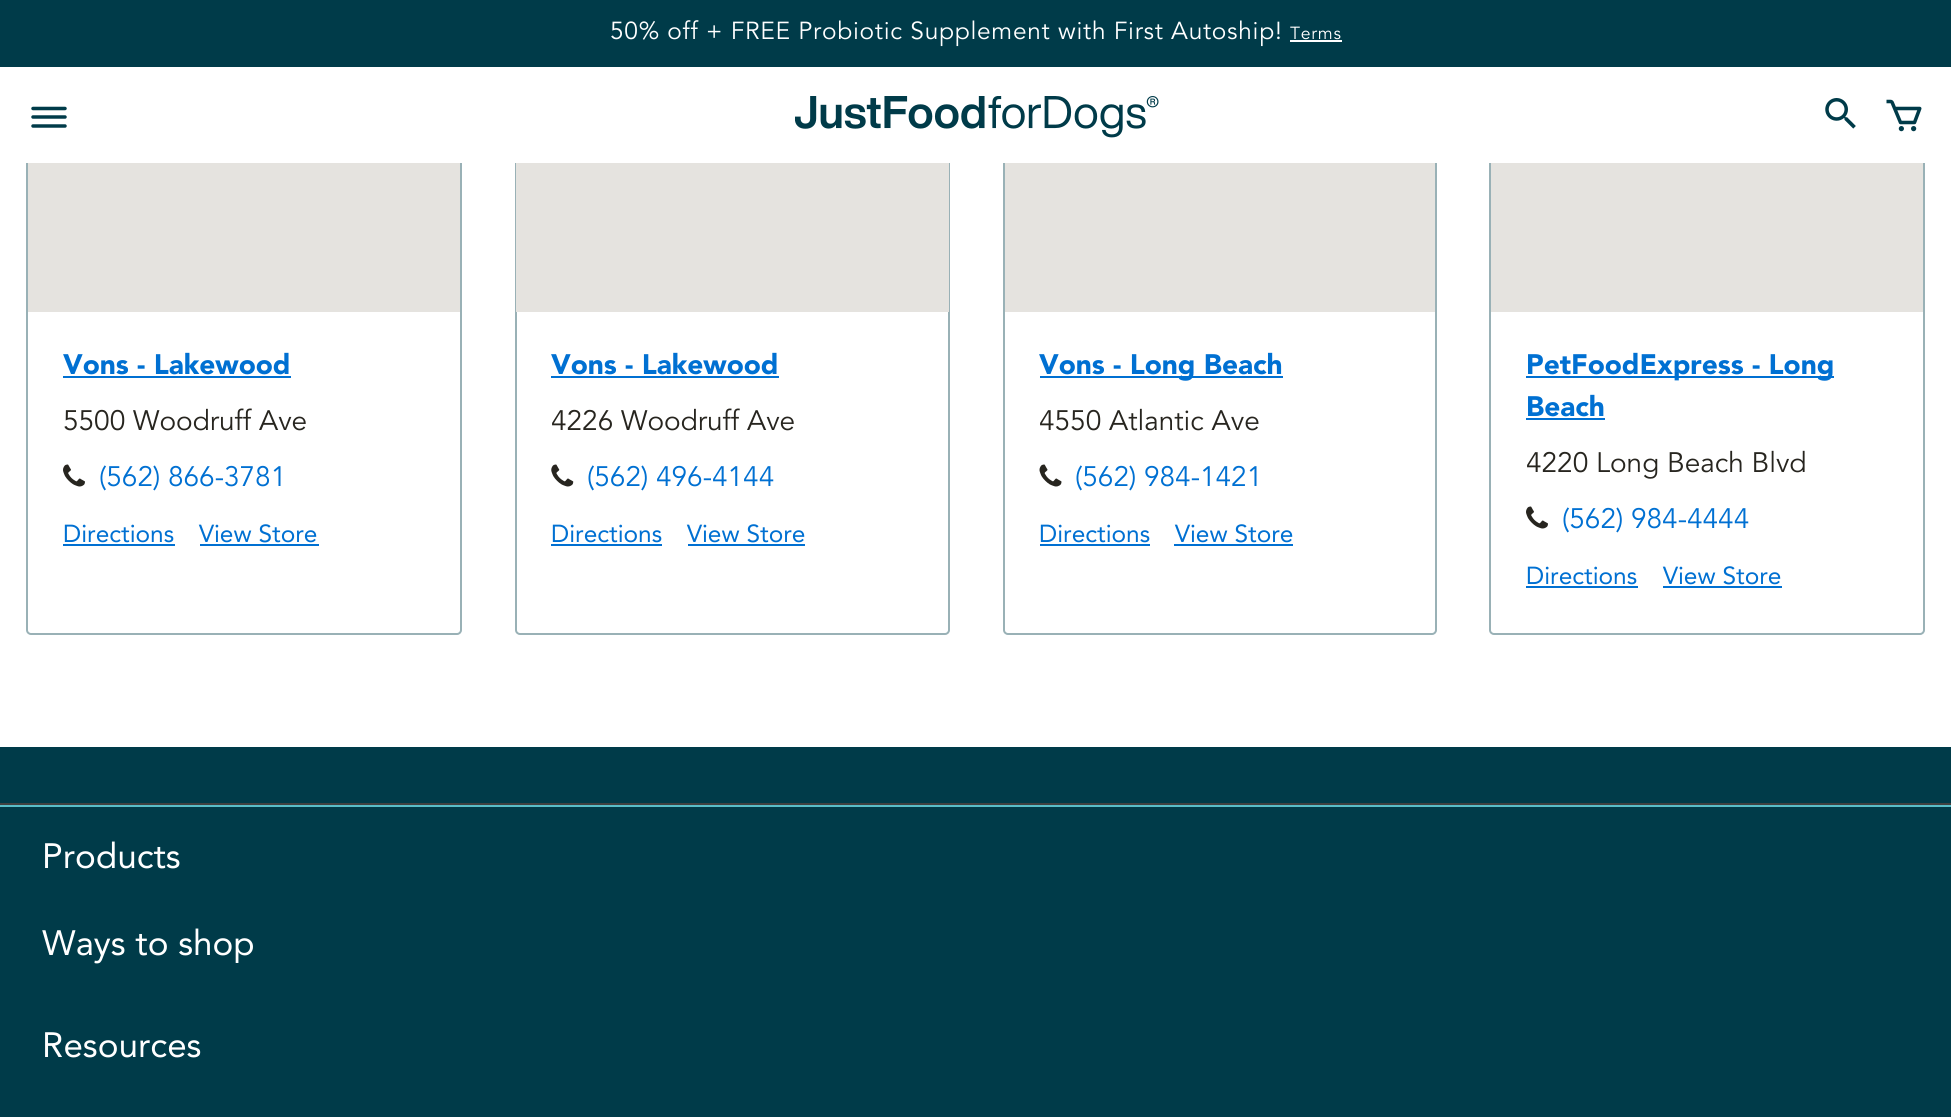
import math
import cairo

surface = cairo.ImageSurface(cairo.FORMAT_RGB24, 1951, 1117)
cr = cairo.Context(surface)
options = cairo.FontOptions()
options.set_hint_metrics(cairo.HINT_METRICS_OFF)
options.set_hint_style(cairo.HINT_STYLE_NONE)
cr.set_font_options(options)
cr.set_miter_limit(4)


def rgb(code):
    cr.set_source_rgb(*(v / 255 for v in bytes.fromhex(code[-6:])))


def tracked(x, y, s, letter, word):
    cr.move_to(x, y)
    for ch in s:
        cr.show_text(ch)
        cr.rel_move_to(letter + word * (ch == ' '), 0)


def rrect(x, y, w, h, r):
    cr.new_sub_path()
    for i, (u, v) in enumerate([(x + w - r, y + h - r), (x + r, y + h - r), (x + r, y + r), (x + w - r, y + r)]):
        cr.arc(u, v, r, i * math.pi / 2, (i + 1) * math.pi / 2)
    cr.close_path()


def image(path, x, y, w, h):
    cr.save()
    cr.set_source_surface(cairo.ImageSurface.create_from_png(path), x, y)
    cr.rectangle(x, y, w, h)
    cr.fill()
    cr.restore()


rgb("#ffffff")
cr.paint()
rrect(27, -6, 434, 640, 4)
rgb("#99b1b6")
cr.stroke()
rrect(516, -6, 433, 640, 4)
cr.stroke()
rrect(1004, -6, 432, 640, 4)
cr.stroke()
rrect(1490, -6, 434, 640, 4)
cr.stroke()
for x, y, w, h, color in [
    (26, 67, 1899, 96, "#ffffff"),
    (0, 0, 1951, 67, "#003b49"),
    (1290, 40, 52, 2, "#ffffff"),
]:
    rgb(color)
    cr.rectangle(x, y, w, h)
    cr.fill()
cr.new_path()
cr.move_to(33, 126)
cr.line_to(65, 126)
cr.move_to(33, 117)
cr.line_to(65, 117)
cr.move_to(33, 108.5)
cr.line_to(65, 108.5)
rgb("#003b49")
cr.set_line_width(3.5)
cr.set_line_cap(cairo.LINE_CAP_ROUND)
cr.set_line_join(cairo.LINE_JOIN_ROUND)
cr.stroke()
image("img/1.png", 795, 96, 364, 42)
image("img/2.png", 1825, 98, 31, 31)
image("img/3.png", 1886, 99, 36, 33)
rgb("#e5e3df")
cr.rectangle(28, 163, 432, 149)
cr.fill()
rgb("#0070d2")
cr.rectangle(63, 376, 228, 2)
cr.fill()
image("img/4.png", 63, 464, 22, 23)
for x, y, w, h, color in [
    (63, 544, 112, 2, "#0070d2"),
    (200, 544, 119, 2, "#0070d2"),
    (516, 163, 433, 149, "#e5e3df"),
    (551, 376, 228, 2, "#0070d2"),
]:
    rgb(color)
    cr.rectangle(x, y, w, h)
    cr.fill()
image("img/5.png", 551, 464, 23, 23)
for x, y, w, h, color in [
    (551, 544, 111, 2, "#0070d2"),
    (688, 544, 117, 2, "#0070d2"),
    (1005, 163, 430, 149, "#e5e3df"),
    (1040, 376, 243, 2, "#0070d2"),
]:
    rgb(color)
    cr.rectangle(x, y, w, h)
    cr.fill()
image("img/6.png", 1039, 464, 23, 23)
for x, y, w, h, color in [
    (1040, 544, 110, 2, "#0070d2"),
    (1174, 544, 119, 2, "#0070d2"),
    (1491, 163, 432, 149, "#e5e3df"),
    (1526, 376, 308, 2, "#0070d2"),
    (1526, 418, 79, 2, "#0070d2"),
]:
    rgb(color)
    cr.rectangle(x, y, w, h)
    cr.fill()
image("img/4.png", 1526, 506, 22, 23)
for x, y, w, h, color in [
    (1526, 586, 112, 2, "#0070d2"),
    (1663, 586, 119, 2, "#0070d2"),
    (0, 747, 1951, 370, "#003b49"),
    (0, 805, 1951, 2, "#59bec9"),
    (0, 803, 1951, 2, "#414141"),
]:
    rgb(color)
    cr.rectangle(x, y, w, h)
    cr.fill()
cr.select_font_face("Avenir")
cr.set_font_size(24.5)
rgb("#ffffff")
tracked(610, 39, "50% off + FREE Probiotic Supplement with First Autoship!", 0.73, 0)
cr.set_font_size(17.5)
tracked(1290, 39, "Terms", 0.73, 0)
cr.select_font_face("Avenir Black")
cr.set_font_size(28)
rgb("#0070d2")
cr.move_to(63, 374)
cr.show_text("Vons - Lakewood")
cr.select_font_face("Avenir")
rgb("#27251f")
cr.move_to(63, 430)
cr.show_text("5500 Woodruff Ave")
rgb("#0070d2")
cr.move_to(99, 486)
cr.show_text("(562) 866-3781")
cr.select_font_face("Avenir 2")
cr.set_font_size(24.5)
cr.move_to(63, 542)
cr.show_text("Directions")
cr.move_to(199, 542)
cr.show_text("View Store")
cr.select_font_face("Avenir Black")
cr.set_font_size(28)
cr.move_to(551, 374)
cr.show_text("Vons - Lakewood")
cr.select_font_face("Avenir")
rgb("#27251f")
cr.move_to(551, 430)
cr.show_text("4226 Woodruff Ave")
rgb("#0070d2")
cr.move_to(587, 486)
cr.show_text("(562) 496-4144")
cr.select_font_face("Avenir 2")
cr.set_font_size(24.5)
cr.move_to(551, 542)
cr.show_text("Directions")
cr.move_to(687, 542)
cr.show_text("View Store")
cr.select_font_face("Avenir Black")
cr.set_font_size(28)
cr.move_to(1039, 374)
cr.show_text("Vons - Long Beach")
cr.select_font_face("Avenir")
rgb("#27251f")
cr.move_to(1039, 430)
cr.show_text("4550 Atlantic Ave")
rgb("#0070d2")
cr.move_to(1075, 486)
cr.show_text("(562) 984-1421")
cr.select_font_face("Avenir 2")
cr.set_font_size(24.5)
cr.move_to(1039, 542)
cr.show_text("Directions")
cr.move_to(1175, 542)
cr.show_text("View Store")
cr.select_font_face("Avenir Black")
cr.set_font_size(28)
cr.move_to(1526, 374)
cr.show_text("PetFoodExpress - Long")
cr.move_to(1526, 416)
cr.show_text("Beach")
cr.select_font_face("Avenir")
rgb("#27251f")
cr.move_to(1526, 472)
cr.show_text("4220 Long Beach Blvd")
rgb("#0070d2")
cr.move_to(1562, 528)
cr.show_text("(562) 984-4444")
cr.select_font_face("Avenir 2")
cr.set_font_size(24.5)
cr.move_to(1526, 584)
cr.show_text("Directions")
cr.move_to(1663, 584)
cr.show_text("View Store")
cr.set_font_size(35)
rgb("#ffffff")
for x, y, s in [
    (42, 868, "Products"),
    (42, 955, "Ways to shop"),
    (42, 1057, "Resources"),
]:
    cr.move_to(x, y)
    cr.show_text(s)
surface.write_to_png("page.png")
